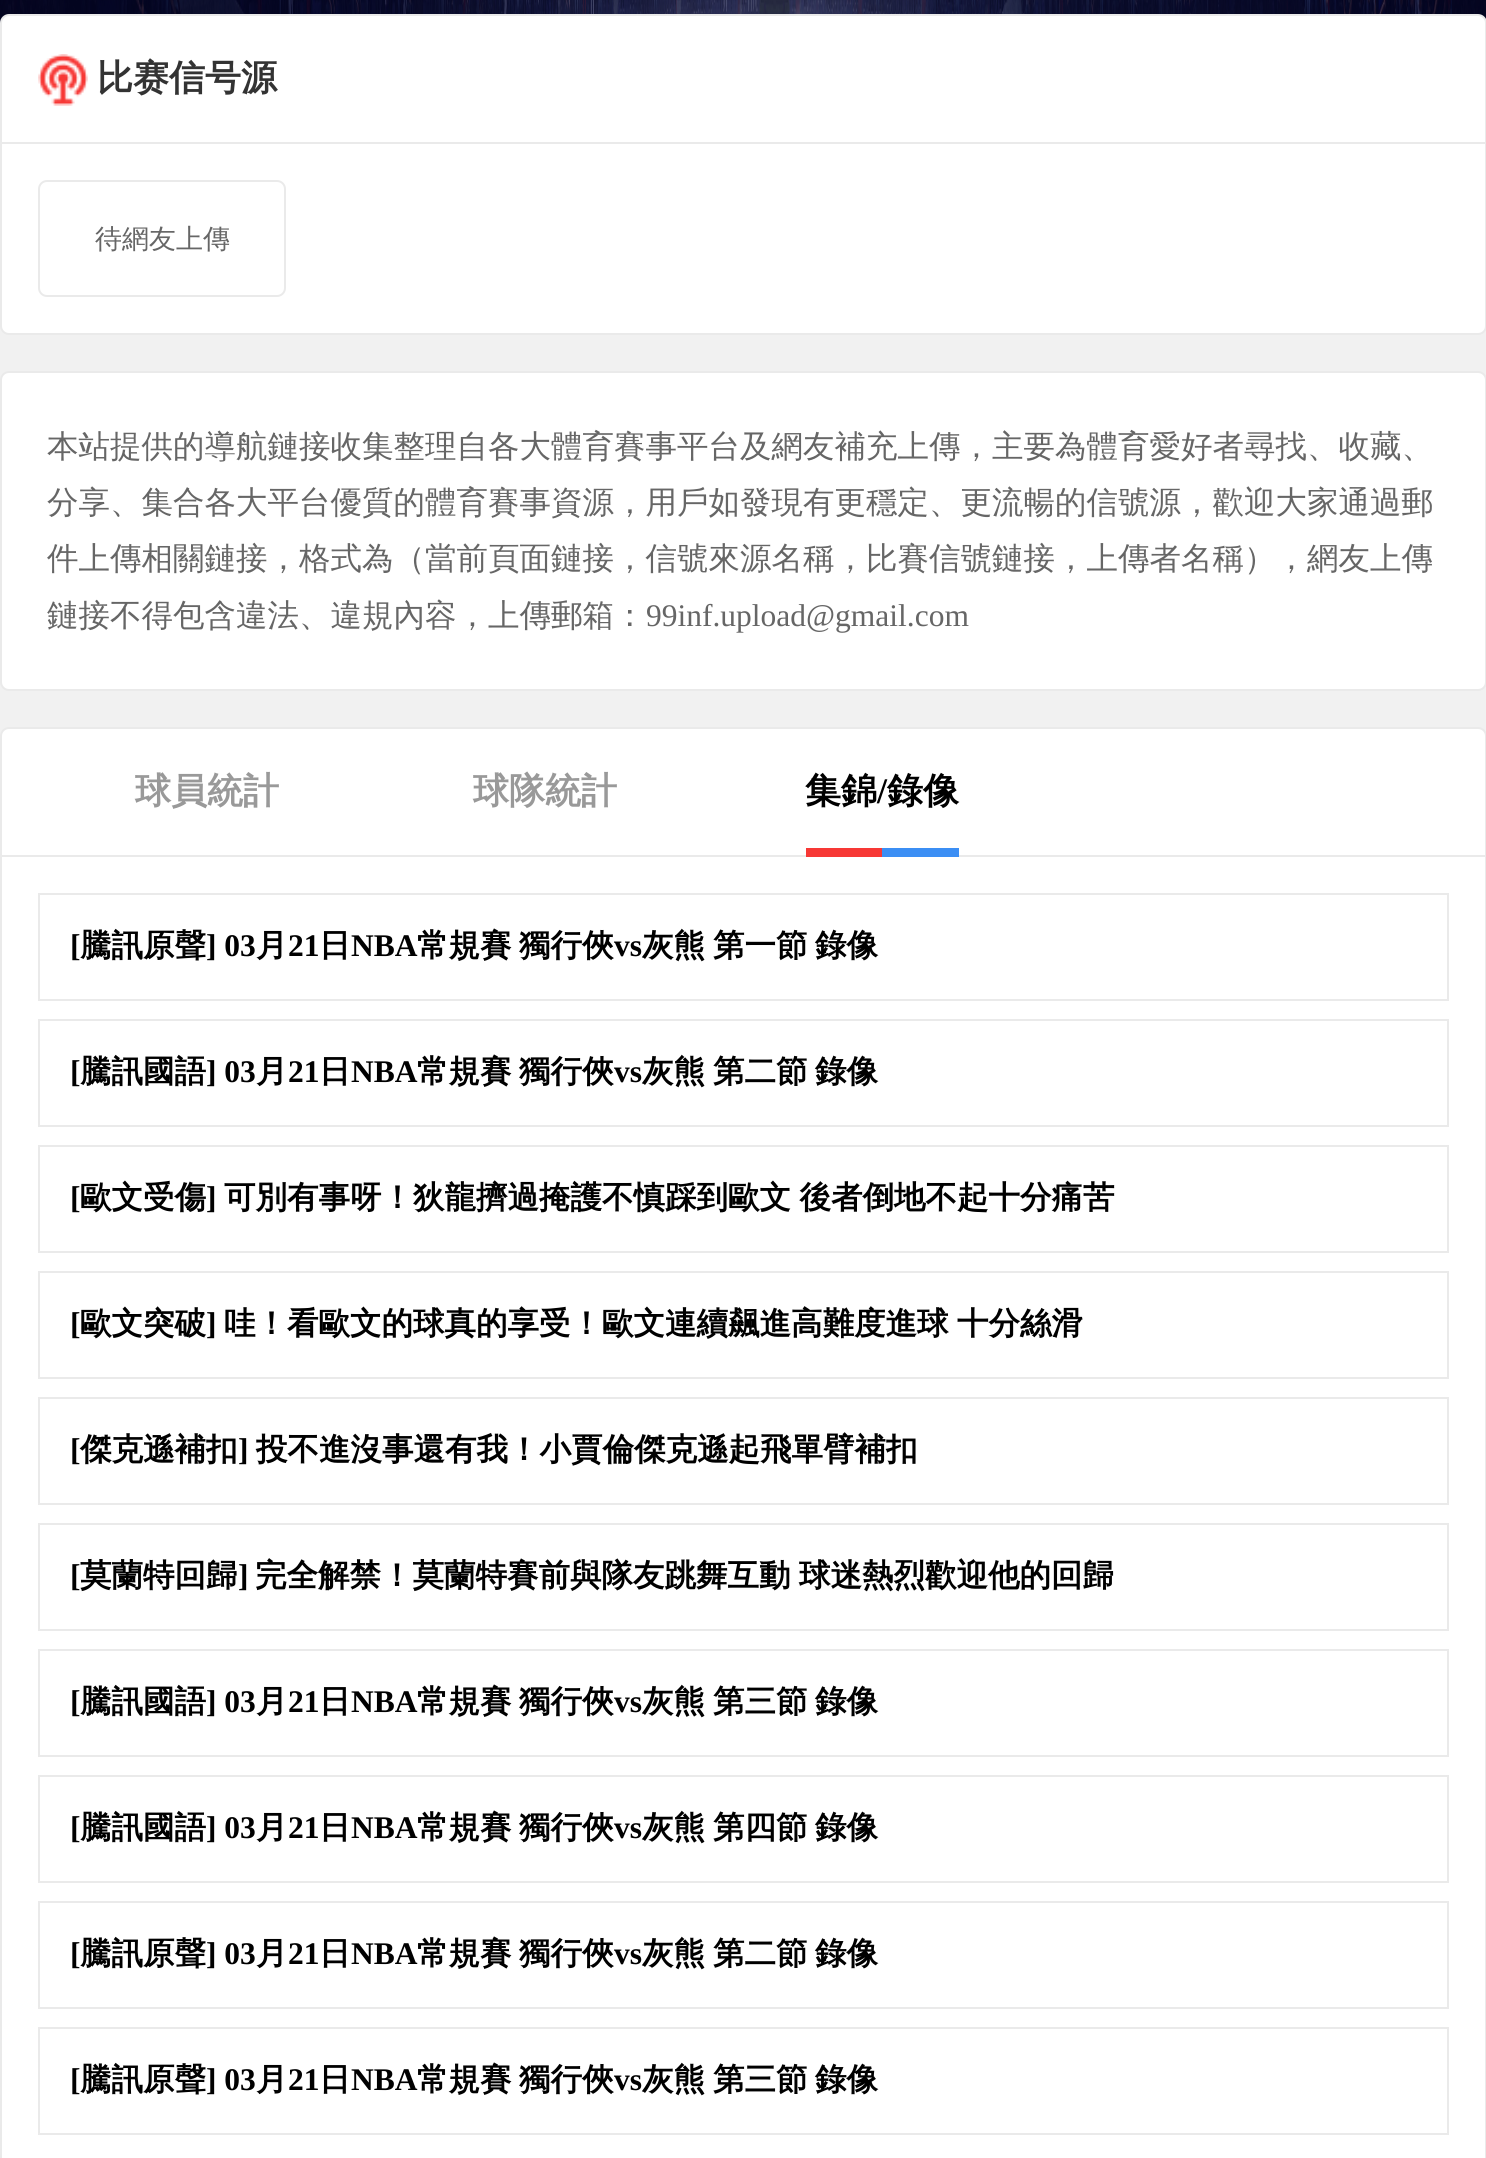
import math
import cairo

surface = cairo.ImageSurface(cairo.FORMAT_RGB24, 1486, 2158)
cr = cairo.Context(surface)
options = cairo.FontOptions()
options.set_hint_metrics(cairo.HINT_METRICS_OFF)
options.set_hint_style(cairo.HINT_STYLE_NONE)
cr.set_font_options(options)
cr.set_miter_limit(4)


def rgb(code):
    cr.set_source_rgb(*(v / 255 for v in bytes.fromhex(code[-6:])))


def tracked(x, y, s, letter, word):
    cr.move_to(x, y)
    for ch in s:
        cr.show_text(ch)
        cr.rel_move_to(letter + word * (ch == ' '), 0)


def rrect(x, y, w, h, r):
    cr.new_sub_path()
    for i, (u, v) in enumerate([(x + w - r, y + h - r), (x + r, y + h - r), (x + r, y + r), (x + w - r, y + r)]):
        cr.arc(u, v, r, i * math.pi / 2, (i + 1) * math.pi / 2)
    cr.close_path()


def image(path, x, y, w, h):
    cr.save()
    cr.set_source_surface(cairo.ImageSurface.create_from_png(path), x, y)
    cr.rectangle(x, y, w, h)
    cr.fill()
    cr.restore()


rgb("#f1f1f1")
cr.paint()
image("img/1.png", 0, 0, 1486, 23)
rgb("#ffffff")
rrect(1, 15, 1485, 319, 8)
cr.fill_preserve()
rgb("#eaeaea")
cr.stroke()
cr.rectangle(2, 142, 1483, 2)
cr.fill()
image("img/2.png", 38, 54, 50, 52)
rrect(39, 181, 246, 115, 8)
cr.stroke()
rgb("#ffffff")
rrect(1, 372, 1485, 318, 8)
cr.fill_preserve()
rgb("#eaeaea")
cr.stroke()
rgb("#ffffff")
rrect(1, 728, 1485, 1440, 8)
cr.fill_preserve()
rgb("#eaeaea")
cr.stroke()
for x, y, w, h, color in [
    (2, 855, 1483, 2, "#eaeaea"),
    (806, 848, 76, 9, "#f73835"),
    (882, 848, 77, 9, "#3b8ef4"),
]:
    rgb(color)
    cr.rectangle(x, y, w, h)
    cr.fill()
cr.rectangle(39, 894, 1409, 106)
rgb("#eaeaea")
cr.stroke()
cr.rectangle(39, 1020, 1409, 106)
cr.stroke()
cr.rectangle(39, 1146, 1409, 106)
cr.stroke()
cr.rectangle(39, 1272, 1409, 106)
cr.stroke()
cr.rectangle(39, 1398, 1409, 106)
cr.stroke()
cr.rectangle(39, 1524, 1409, 106)
cr.stroke()
cr.rectangle(39, 1650, 1409, 106)
cr.stroke()
cr.rectangle(39, 1776, 1409, 106)
cr.stroke()
cr.rectangle(39, 1902, 1409, 106)
cr.stroke()
cr.rectangle(39, 2028, 1409, 106)
cr.stroke()
cr.select_font_face("WenQuanYi Zen Hei", cairo.FONT_SLANT_NORMAL, cairo.FONT_WEIGHT_BOLD)
cr.set_font_size(36)
rgb("#333333")
cr.move_to(97, 90)
cr.show_text("比赛信号源")
cr.select_font_face("WenQuanYi Zen Hei Medium")
cr.set_font_size(27)
rgb("#666666")
cr.move_to(95, 248)
cr.show_text("待網友上傳")
cr.set_font_size(31.5)
for x, y, s in [
    (47, 457, "本站提供的導航鏈接收集整理自各大體育賽事平台及網友補充上傳，主要為體育愛好者尋找、收藏、"),
    (47, 513, "分享、集合各大平台優質的體育賽事資源，用戶如發現有更穩定、更流暢的信號源，歡迎大家通過郵"),
    (47, 569, "件上傳相關鏈接，格式為（當前頁面鏈接，信號來源名稱，比賽信號鏈接，上傳者名稱），網友上傳"),
    (47, 626, "鏈接不得包含違法、違規內容，上傳郵箱："),
]:
    cr.move_to(x, y)
    cr.show_text(s)
cr.select_font_face("Liberation Serif")
cr.move_to(646, 626)
cr.show_text("99inf.upload@gmail.com")
cr.select_font_face("WenQuanYi Zen Hei", cairo.FONT_SLANT_NORMAL, cairo.FONT_WEIGHT_BOLD)
cr.set_font_size(36)
rgb("#999999")
cr.move_to(135, 803)
cr.show_text("球員統計")
cr.move_to(473, 803)
cr.show_text("球隊統計")
rgb("#000000")
cr.move_to(805, 803)
cr.show_text("集錦")
cr.select_font_face("Liberation Serif", cairo.FONT_SLANT_NORMAL, cairo.FONT_WEIGHT_BOLD)
cr.move_to(877, 803)
cr.show_text("/")
cr.select_font_face("WenQuanYi Zen Hei", cairo.FONT_SLANT_NORMAL, cairo.FONT_WEIGHT_BOLD)
cr.move_to(887, 803)
cr.show_text("錄像")
cr.select_font_face("Liberation Serif", cairo.FONT_SLANT_NORMAL, cairo.FONT_WEIGHT_BOLD)
cr.set_font_size(31.5)
cr.move_to(70, 956)
cr.show_text("[")
cr.select_font_face("WenQuanYi Zen Hei", cairo.FONT_SLANT_NORMAL, cairo.FONT_WEIGHT_BOLD)
cr.move_to(80, 956)
cr.show_text("騰訊原聲")
cr.select_font_face("Liberation Serif", cairo.FONT_SLANT_NORMAL, cairo.FONT_WEIGHT_BOLD)
cr.move_to(206, 956)
cr.show_text("] 03")
cr.select_font_face("WenQuanYi Zen Hei", cairo.FONT_SLANT_NORMAL, cairo.FONT_WEIGHT_BOLD)
cr.move_to(256, 956)
cr.show_text("月")
cr.select_font_face("Liberation Serif", cairo.FONT_SLANT_NORMAL, cairo.FONT_WEIGHT_BOLD)
cr.move_to(288, 956)
cr.show_text("21")
cr.select_font_face("WenQuanYi Zen Hei", cairo.FONT_SLANT_NORMAL, cairo.FONT_WEIGHT_BOLD)
cr.move_to(319, 956)
cr.show_text("日")
cr.select_font_face("Liberation Serif", cairo.FONT_SLANT_NORMAL, cairo.FONT_WEIGHT_BOLD)
cr.move_to(351, 956)
cr.show_text("NBA")
cr.select_font_face("WenQuanYi Zen Hei", cairo.FONT_SLANT_NORMAL, cairo.FONT_WEIGHT_BOLD)
cr.move_to(417, 956)
cr.show_text("常規賽")
cr.move_to(519, 956)
cr.show_text("獨行俠")
cr.select_font_face("Liberation Serif", cairo.FONT_SLANT_NORMAL, cairo.FONT_WEIGHT_BOLD)
cr.move_to(614, 956)
cr.show_text("vs")
cr.select_font_face("WenQuanYi Zen Hei", cairo.FONT_SLANT_NORMAL, cairo.FONT_WEIGHT_BOLD)
for x, y, s in [
    (642, 956, "灰熊"),
    (713, 956, "第一節"),
    (815, 956, "錄像"),
]:
    cr.move_to(x, y)
    cr.show_text(s)
cr.select_font_face("Liberation Serif", cairo.FONT_SLANT_NORMAL, cairo.FONT_WEIGHT_BOLD)
cr.move_to(70, 1082)
cr.show_text("[")
cr.select_font_face("WenQuanYi Zen Hei", cairo.FONT_SLANT_NORMAL, cairo.FONT_WEIGHT_BOLD)
cr.move_to(80, 1082)
cr.show_text("騰訊國語")
cr.select_font_face("Liberation Serif", cairo.FONT_SLANT_NORMAL, cairo.FONT_WEIGHT_BOLD)
cr.move_to(206, 1082)
cr.show_text("] 03")
cr.select_font_face("WenQuanYi Zen Hei", cairo.FONT_SLANT_NORMAL, cairo.FONT_WEIGHT_BOLD)
cr.move_to(256, 1082)
cr.show_text("月")
cr.select_font_face("Liberation Serif", cairo.FONT_SLANT_NORMAL, cairo.FONT_WEIGHT_BOLD)
cr.move_to(288, 1082)
cr.show_text("21")
cr.select_font_face("WenQuanYi Zen Hei", cairo.FONT_SLANT_NORMAL, cairo.FONT_WEIGHT_BOLD)
cr.move_to(319, 1082)
cr.show_text("日")
cr.select_font_face("Liberation Serif", cairo.FONT_SLANT_NORMAL, cairo.FONT_WEIGHT_BOLD)
cr.move_to(351, 1082)
cr.show_text("NBA")
cr.select_font_face("WenQuanYi Zen Hei", cairo.FONT_SLANT_NORMAL, cairo.FONT_WEIGHT_BOLD)
cr.move_to(417, 1082)
cr.show_text("常規賽")
cr.move_to(519, 1082)
cr.show_text("獨行俠")
cr.select_font_face("Liberation Serif", cairo.FONT_SLANT_NORMAL, cairo.FONT_WEIGHT_BOLD)
cr.move_to(614, 1082)
cr.show_text("vs")
cr.select_font_face("WenQuanYi Zen Hei", cairo.FONT_SLANT_NORMAL, cairo.FONT_WEIGHT_BOLD)
for x, y, s in [
    (642, 1082, "灰熊"),
    (713, 1082, "第二節"),
    (815, 1082, "錄像"),
]:
    cr.move_to(x, y)
    cr.show_text(s)
cr.select_font_face("Liberation Serif", cairo.FONT_SLANT_NORMAL, cairo.FONT_WEIGHT_BOLD)
cr.move_to(70, 1208)
cr.show_text("[")
cr.select_font_face("WenQuanYi Zen Hei", cairo.FONT_SLANT_NORMAL, cairo.FONT_WEIGHT_BOLD)
cr.move_to(80, 1208)
cr.show_text("歐文受傷")
cr.select_font_face("Liberation Serif", cairo.FONT_SLANT_NORMAL, cairo.FONT_WEIGHT_BOLD)
cr.move_to(206, 1208)
cr.show_text("]")
cr.select_font_face("WenQuanYi Zen Hei", cairo.FONT_SLANT_NORMAL, cairo.FONT_WEIGHT_BOLD)
tracked(224, 1208, "可別有事呀！狄龍擠過掩護不慎踩到歐文 後者倒地不起十分痛苦", 0, -1)
cr.select_font_face("Liberation Serif", cairo.FONT_SLANT_NORMAL, cairo.FONT_WEIGHT_BOLD)
cr.move_to(70, 1334)
cr.show_text("[")
cr.select_font_face("WenQuanYi Zen Hei", cairo.FONT_SLANT_NORMAL, cairo.FONT_WEIGHT_BOLD)
cr.move_to(80, 1334)
cr.show_text("歐文突破")
cr.select_font_face("Liberation Serif", cairo.FONT_SLANT_NORMAL, cairo.FONT_WEIGHT_BOLD)
cr.move_to(206, 1334)
cr.show_text("]")
cr.select_font_face("WenQuanYi Zen Hei", cairo.FONT_SLANT_NORMAL, cairo.FONT_WEIGHT_BOLD)
tracked(224, 1334, "哇！看歐文的球真的享受！歐文連續飆進高難度進球 十分絲滑", 0, -1)
cr.select_font_face("Liberation Serif", cairo.FONT_SLANT_NORMAL, cairo.FONT_WEIGHT_BOLD)
cr.move_to(70, 1460)
cr.show_text("[")
cr.select_font_face("WenQuanYi Zen Hei", cairo.FONT_SLANT_NORMAL, cairo.FONT_WEIGHT_BOLD)
cr.move_to(80, 1460)
cr.show_text("傑克遜補扣")
cr.select_font_face("Liberation Serif", cairo.FONT_SLANT_NORMAL, cairo.FONT_WEIGHT_BOLD)
cr.move_to(238, 1460)
cr.show_text("]")
cr.select_font_face("WenQuanYi Zen Hei", cairo.FONT_SLANT_NORMAL, cairo.FONT_WEIGHT_BOLD)
cr.move_to(256, 1460)
cr.show_text("投不進沒事還有我！小賈倫傑克遜起飛單臂補扣")
cr.select_font_face("Liberation Serif", cairo.FONT_SLANT_NORMAL, cairo.FONT_WEIGHT_BOLD)
cr.move_to(70, 1586)
cr.show_text("[")
cr.select_font_face("WenQuanYi Zen Hei", cairo.FONT_SLANT_NORMAL, cairo.FONT_WEIGHT_BOLD)
cr.move_to(80, 1586)
cr.show_text("莫蘭特回歸")
cr.select_font_face("Liberation Serif", cairo.FONT_SLANT_NORMAL, cairo.FONT_WEIGHT_BOLD)
cr.move_to(238, 1586)
cr.show_text("]")
cr.select_font_face("WenQuanYi Zen Hei", cairo.FONT_SLANT_NORMAL, cairo.FONT_WEIGHT_BOLD)
tracked(255, 1586, "完全解禁！莫蘭特賽前與隊友跳舞互動 球迷熱烈歡迎他的回歸", 0, -1)
cr.select_font_face("Liberation Serif", cairo.FONT_SLANT_NORMAL, cairo.FONT_WEIGHT_BOLD)
cr.move_to(70, 1712)
cr.show_text("[")
cr.select_font_face("WenQuanYi Zen Hei", cairo.FONT_SLANT_NORMAL, cairo.FONT_WEIGHT_BOLD)
cr.move_to(80, 1712)
cr.show_text("騰訊國語")
cr.select_font_face("Liberation Serif", cairo.FONT_SLANT_NORMAL, cairo.FONT_WEIGHT_BOLD)
cr.move_to(206, 1712)
cr.show_text("] 03")
cr.select_font_face("WenQuanYi Zen Hei", cairo.FONT_SLANT_NORMAL, cairo.FONT_WEIGHT_BOLD)
cr.move_to(256, 1712)
cr.show_text("月")
cr.select_font_face("Liberation Serif", cairo.FONT_SLANT_NORMAL, cairo.FONT_WEIGHT_BOLD)
cr.move_to(288, 1712)
cr.show_text("21")
cr.select_font_face("WenQuanYi Zen Hei", cairo.FONT_SLANT_NORMAL, cairo.FONT_WEIGHT_BOLD)
cr.move_to(319, 1712)
cr.show_text("日")
cr.select_font_face("Liberation Serif", cairo.FONT_SLANT_NORMAL, cairo.FONT_WEIGHT_BOLD)
cr.move_to(351, 1712)
cr.show_text("NBA")
cr.select_font_face("WenQuanYi Zen Hei", cairo.FONT_SLANT_NORMAL, cairo.FONT_WEIGHT_BOLD)
cr.move_to(417, 1712)
cr.show_text("常規賽")
cr.move_to(519, 1712)
cr.show_text("獨行俠")
cr.select_font_face("Liberation Serif", cairo.FONT_SLANT_NORMAL, cairo.FONT_WEIGHT_BOLD)
cr.move_to(614, 1712)
cr.show_text("vs")
cr.select_font_face("WenQuanYi Zen Hei", cairo.FONT_SLANT_NORMAL, cairo.FONT_WEIGHT_BOLD)
for x, y, s in [
    (642, 1712, "灰熊"),
    (713, 1712, "第三節"),
    (815, 1712, "錄像"),
]:
    cr.move_to(x, y)
    cr.show_text(s)
cr.select_font_face("Liberation Serif", cairo.FONT_SLANT_NORMAL, cairo.FONT_WEIGHT_BOLD)
cr.move_to(70, 1838)
cr.show_text("[")
cr.select_font_face("WenQuanYi Zen Hei", cairo.FONT_SLANT_NORMAL, cairo.FONT_WEIGHT_BOLD)
cr.move_to(80, 1838)
cr.show_text("騰訊國語")
cr.select_font_face("Liberation Serif", cairo.FONT_SLANT_NORMAL, cairo.FONT_WEIGHT_BOLD)
cr.move_to(206, 1838)
cr.show_text("] 03")
cr.select_font_face("WenQuanYi Zen Hei", cairo.FONT_SLANT_NORMAL, cairo.FONT_WEIGHT_BOLD)
cr.move_to(256, 1838)
cr.show_text("月")
cr.select_font_face("Liberation Serif", cairo.FONT_SLANT_NORMAL, cairo.FONT_WEIGHT_BOLD)
cr.move_to(288, 1838)
cr.show_text("21")
cr.select_font_face("WenQuanYi Zen Hei", cairo.FONT_SLANT_NORMAL, cairo.FONT_WEIGHT_BOLD)
cr.move_to(319, 1838)
cr.show_text("日")
cr.select_font_face("Liberation Serif", cairo.FONT_SLANT_NORMAL, cairo.FONT_WEIGHT_BOLD)
cr.move_to(351, 1838)
cr.show_text("NBA")
cr.select_font_face("WenQuanYi Zen Hei", cairo.FONT_SLANT_NORMAL, cairo.FONT_WEIGHT_BOLD)
cr.move_to(417, 1838)
cr.show_text("常規賽")
cr.move_to(519, 1838)
cr.show_text("獨行俠")
cr.select_font_face("Liberation Serif", cairo.FONT_SLANT_NORMAL, cairo.FONT_WEIGHT_BOLD)
cr.move_to(614, 1838)
cr.show_text("vs")
cr.select_font_face("WenQuanYi Zen Hei", cairo.FONT_SLANT_NORMAL, cairo.FONT_WEIGHT_BOLD)
for x, y, s in [
    (642, 1838, "灰熊"),
    (713, 1838, "第四節"),
    (815, 1838, "錄像"),
]:
    cr.move_to(x, y)
    cr.show_text(s)
cr.select_font_face("Liberation Serif", cairo.FONT_SLANT_NORMAL, cairo.FONT_WEIGHT_BOLD)
cr.move_to(70, 1964)
cr.show_text("[")
cr.select_font_face("WenQuanYi Zen Hei", cairo.FONT_SLANT_NORMAL, cairo.FONT_WEIGHT_BOLD)
cr.move_to(80, 1964)
cr.show_text("騰訊原聲")
cr.select_font_face("Liberation Serif", cairo.FONT_SLANT_NORMAL, cairo.FONT_WEIGHT_BOLD)
cr.move_to(206, 1964)
cr.show_text("] 03")
cr.select_font_face("WenQuanYi Zen Hei", cairo.FONT_SLANT_NORMAL, cairo.FONT_WEIGHT_BOLD)
cr.move_to(256, 1964)
cr.show_text("月")
cr.select_font_face("Liberation Serif", cairo.FONT_SLANT_NORMAL, cairo.FONT_WEIGHT_BOLD)
cr.move_to(288, 1964)
cr.show_text("21")
cr.select_font_face("WenQuanYi Zen Hei", cairo.FONT_SLANT_NORMAL, cairo.FONT_WEIGHT_BOLD)
cr.move_to(319, 1964)
cr.show_text("日")
cr.select_font_face("Liberation Serif", cairo.FONT_SLANT_NORMAL, cairo.FONT_WEIGHT_BOLD)
cr.move_to(351, 1964)
cr.show_text("NBA")
cr.select_font_face("WenQuanYi Zen Hei", cairo.FONT_SLANT_NORMAL, cairo.FONT_WEIGHT_BOLD)
cr.move_to(417, 1964)
cr.show_text("常規賽")
cr.move_to(519, 1964)
cr.show_text("獨行俠")
cr.select_font_face("Liberation Serif", cairo.FONT_SLANT_NORMAL, cairo.FONT_WEIGHT_BOLD)
cr.move_to(614, 1964)
cr.show_text("vs")
cr.select_font_face("WenQuanYi Zen Hei", cairo.FONT_SLANT_NORMAL, cairo.FONT_WEIGHT_BOLD)
for x, y, s in [
    (642, 1964, "灰熊"),
    (713, 1964, "第二節"),
    (815, 1964, "錄像"),
]:
    cr.move_to(x, y)
    cr.show_text(s)
cr.select_font_face("Liberation Serif", cairo.FONT_SLANT_NORMAL, cairo.FONT_WEIGHT_BOLD)
cr.move_to(70, 2090)
cr.show_text("[")
cr.select_font_face("WenQuanYi Zen Hei", cairo.FONT_SLANT_NORMAL, cairo.FONT_WEIGHT_BOLD)
cr.move_to(80, 2090)
cr.show_text("騰訊原聲")
cr.select_font_face("Liberation Serif", cairo.FONT_SLANT_NORMAL, cairo.FONT_WEIGHT_BOLD)
cr.move_to(206, 2090)
cr.show_text("] 03")
cr.select_font_face("WenQuanYi Zen Hei", cairo.FONT_SLANT_NORMAL, cairo.FONT_WEIGHT_BOLD)
cr.move_to(256, 2090)
cr.show_text("月")
cr.select_font_face("Liberation Serif", cairo.FONT_SLANT_NORMAL, cairo.FONT_WEIGHT_BOLD)
cr.move_to(288, 2090)
cr.show_text("21")
cr.select_font_face("WenQuanYi Zen Hei", cairo.FONT_SLANT_NORMAL, cairo.FONT_WEIGHT_BOLD)
cr.move_to(319, 2090)
cr.show_text("日")
cr.select_font_face("Liberation Serif", cairo.FONT_SLANT_NORMAL, cairo.FONT_WEIGHT_BOLD)
cr.move_to(351, 2090)
cr.show_text("NBA")
cr.select_font_face("WenQuanYi Zen Hei", cairo.FONT_SLANT_NORMAL, cairo.FONT_WEIGHT_BOLD)
cr.move_to(417, 2090)
cr.show_text("常規賽")
cr.move_to(519, 2090)
cr.show_text("獨行俠")
cr.select_font_face("Liberation Serif", cairo.FONT_SLANT_NORMAL, cairo.FONT_WEIGHT_BOLD)
cr.move_to(614, 2090)
cr.show_text("vs")
cr.select_font_face("WenQuanYi Zen Hei", cairo.FONT_SLANT_NORMAL, cairo.FONT_WEIGHT_BOLD)
for x, y, s in [
    (642, 2090, "灰熊"),
    (713, 2090, "第三節"),
    (815, 2090, "錄像"),
]:
    cr.move_to(x, y)
    cr.show_text(s)
surface.write_to_png("page.png")
